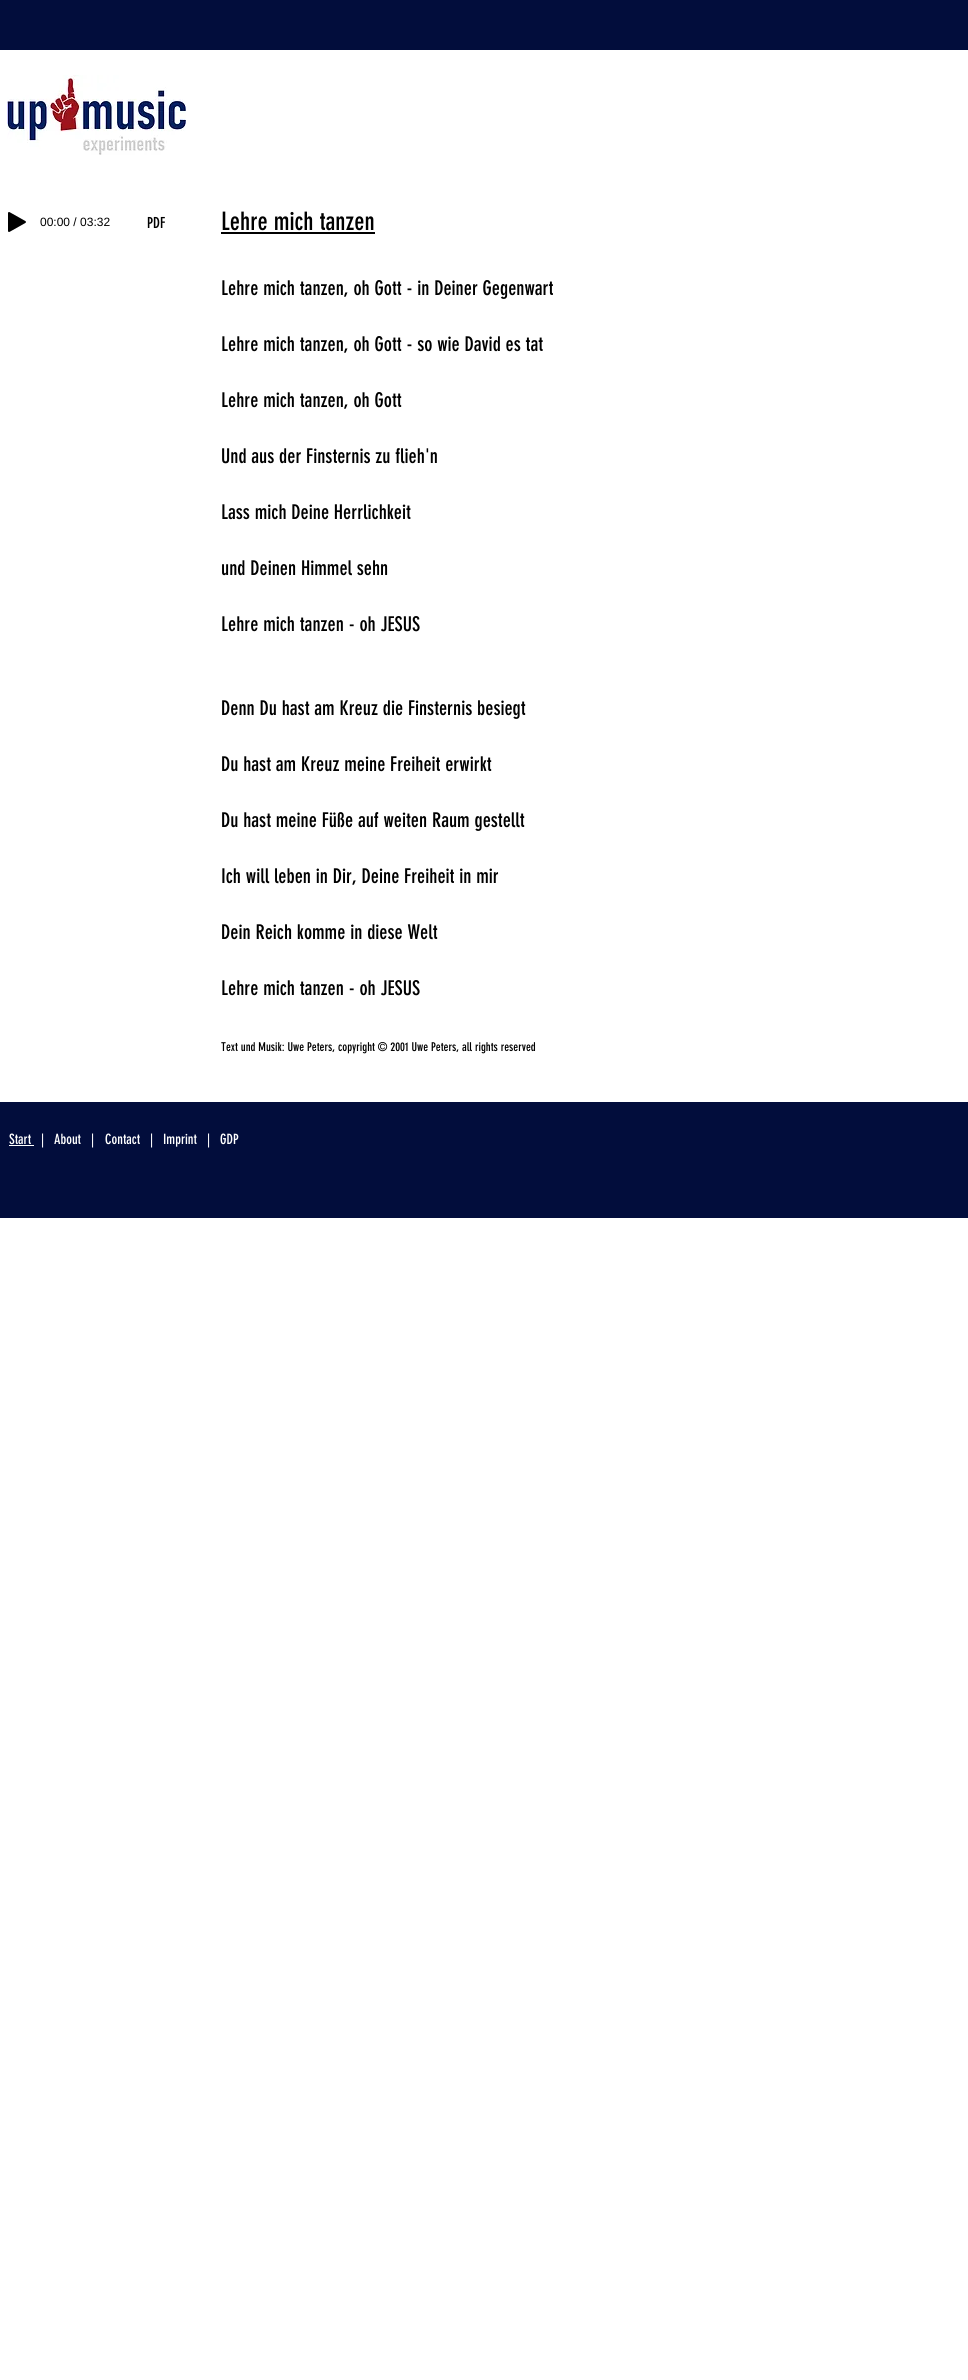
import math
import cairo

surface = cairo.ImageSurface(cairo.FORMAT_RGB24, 968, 2380)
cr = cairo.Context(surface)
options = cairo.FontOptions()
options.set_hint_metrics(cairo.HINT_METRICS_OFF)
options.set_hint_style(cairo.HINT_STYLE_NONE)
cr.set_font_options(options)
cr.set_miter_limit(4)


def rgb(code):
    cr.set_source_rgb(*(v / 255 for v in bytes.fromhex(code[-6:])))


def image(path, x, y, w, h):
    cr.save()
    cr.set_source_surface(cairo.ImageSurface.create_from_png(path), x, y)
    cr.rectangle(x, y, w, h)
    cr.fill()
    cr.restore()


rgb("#ffffff")
cr.paint()
rgb("#020d3c")
cr.rectangle(0, 0, 968, 50)
cr.fill()
image("img/1.png", 7, 75, 179, 80)
image("img/2.png", 8, 212, 18, 20)
for x, y, w, h, color in [
    (221, 232, 154, 2, "#000000"),
    (0, 1102, 968, 116, "#020d3c"),
    (9, 1145, 25, 1, "#ffffff"),
]:
    rgb(color)
    cr.rectangle(x, y, w, h)
    cr.fill()
cr.select_font_face("Liberation Sans")
cr.set_font_size(12)
rgb("#000000")
cr.move_to(40, 226)
cr.show_text("00:00 / 03:32")
cr.select_font_face("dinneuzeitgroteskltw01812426")
cr.set_font_size(15)
cr.move_to(147, 228)
cr.show_text("PDF")
cr.set_font_size(25)
cr.move_to(221, 230)
cr.show_text("Lehre mich tanzen")
cr.set_font_size(20)
for x, y, s in [
    (221, 295, "Lehre mich tanzen, oh Gott - in Deiner Gegenwart"),
    (221, 351, "Lehre mich tanzen, oh Gott - so wie David es tat"),
    (221, 407, "Lehre mich tanzen, oh Gott"),
    (221, 463, "Und aus der Finsternis zu flieh'n"),
    (221, 519, "Lass mich Deine Herrlichkeit"),
    (221, 575, "und Deinen Himmel sehn"),
    (221, 631, "Lehre mich tanzen - oh JESUS"),
    (221, 715, "Denn Du hast am Kreuz die Finsternis besiegt"),
    (221, 771, "Du hast am Kreuz meine Freiheit erwirkt"),
    (221, 827, "Du hast meine Füße auf weiten Raum gestellt"),
    (221, 883, "Ich will leben in Dir, Deine Freiheit in mir"),
    (221, 939, "Dein Reich komme in diese Welt"),
    (221, 995, "Lehre mich tanzen - oh JESUS"),
]:
    cr.move_to(x, y)
    cr.show_text(s)
cr.set_font_size(12)
cr.move_to(221, 1051)
cr.show_text("Text und Musik: Uwe Peters, copyright © 2001 Uwe Peters, all rights reserved")
cr.set_font_size(14)
rgb("#ffffff")
for x, y, s in [
    (9, 1144, "Start"),
    (41, 1144, "|"),
    (54, 1144, "About"),
    (91, 1144, "|"),
    (105, 1144, "Contact"),
    (150, 1144, "|"),
    (163, 1144, "Imprint"),
    (207, 1144, "|"),
    (220, 1144, "GDP"),
]:
    cr.move_to(x, y)
    cr.show_text(s)
surface.write_to_png("page.png")
